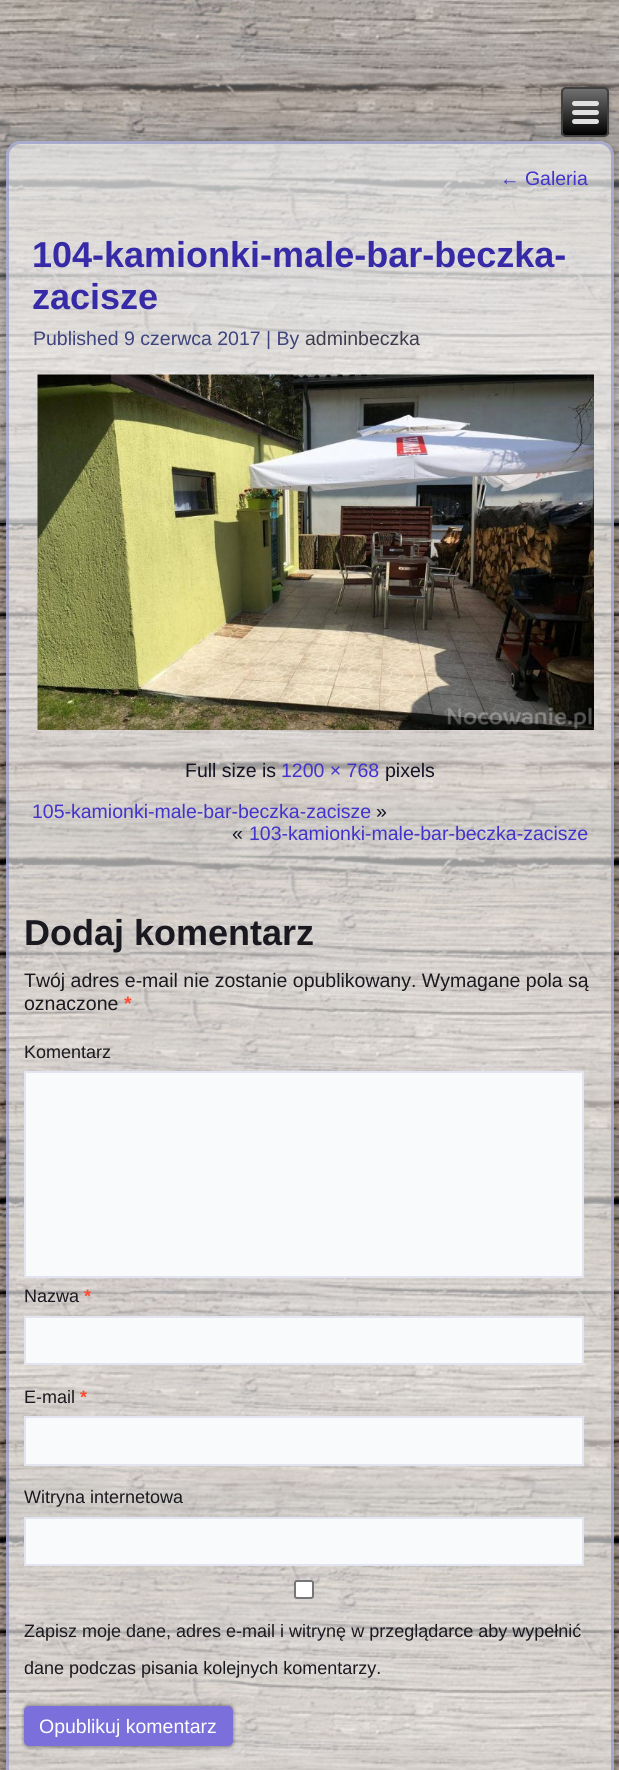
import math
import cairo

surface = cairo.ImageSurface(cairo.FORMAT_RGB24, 619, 1770)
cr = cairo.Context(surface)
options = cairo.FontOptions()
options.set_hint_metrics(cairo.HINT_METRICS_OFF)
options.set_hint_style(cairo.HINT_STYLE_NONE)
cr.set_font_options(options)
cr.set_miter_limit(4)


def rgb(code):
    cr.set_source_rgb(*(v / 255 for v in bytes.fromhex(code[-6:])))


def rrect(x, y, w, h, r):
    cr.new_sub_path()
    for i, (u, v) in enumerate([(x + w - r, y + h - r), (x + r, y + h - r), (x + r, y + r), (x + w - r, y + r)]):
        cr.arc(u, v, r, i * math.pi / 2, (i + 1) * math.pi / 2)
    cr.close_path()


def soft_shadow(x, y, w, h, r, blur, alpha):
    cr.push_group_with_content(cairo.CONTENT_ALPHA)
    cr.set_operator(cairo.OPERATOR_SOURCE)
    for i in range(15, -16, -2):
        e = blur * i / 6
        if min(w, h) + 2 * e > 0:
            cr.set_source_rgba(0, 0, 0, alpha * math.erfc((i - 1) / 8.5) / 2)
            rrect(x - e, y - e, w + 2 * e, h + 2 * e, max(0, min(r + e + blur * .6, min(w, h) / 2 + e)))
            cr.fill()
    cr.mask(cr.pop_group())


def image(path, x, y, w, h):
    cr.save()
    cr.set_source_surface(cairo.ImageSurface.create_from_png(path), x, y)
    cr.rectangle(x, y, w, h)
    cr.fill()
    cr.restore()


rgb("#ffffff")
cr.paint()
image("img/1.png", 0, 0, 619, 1770)
cr.save()
cr.set_fill_rule(cairo.FILL_RULE_EVEN_ODD)
cr.new_path()
cr.move_to(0, 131)
cr.line_to(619, 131)
cr.line_to(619, 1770)
cr.line_to(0, 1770)
cr.close_path()
cr.move_to(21, 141)
cr.line_to(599, 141)
cr.curve_to(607.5, 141, 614, 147.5, 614, 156)
cr.line_to(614, 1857)
cr.curve_to(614, 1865.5, 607.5, 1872, 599, 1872)
cr.line_to(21, 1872)
cr.curve_to(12.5, 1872, 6, 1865.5, 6, 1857)
cr.line_to(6, 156)
cr.curve_to(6, 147.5, 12.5, 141, 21, 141)
cr.close_path()
cr.clip()
rgb("#000000")
soft_shadow(3, 138, 614, 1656, 18, 2, 0.09)
cr.restore()
cr.set_source_rgba(1, 1, 1, 0.6)
rrect(6, 141, 608, 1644, 15)
cr.fill()
rrect(7.5, 142.5, 605, 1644, 13.5)
cr.set_source_rgba(0.529, 0.549, 0.769, 0.6)
cr.set_line_width(3)
cr.stroke()
rgb("#000000")
soft_shadow(561, 87, 48, 50, 5, 2, 0.2)
cr.save()
rrect(561, 87, 48, 50, 5)
cr.clip()
gradient = cairo.LinearGradient(585, 89, 585, 135)
gradient.add_color_stop_rgba(0, 0.439, 0.439, 0.439, 1)
gradient.add_color_stop_rgba(1, 0, 0, 0, 1)
cr.set_source(gradient)
cr.rectangle(561, 89, 48, 46)
cr.fill()
cr.restore()
rrect(562, 88, 46, 48, 4)
rgb("#404040")
cr.set_line_width(2)
cr.stroke()
rgb("#e0e0e0")
rrect(572, 101, 27, 5, 2.5)
cr.fill()
rrect(572, 110, 27, 5, 2.5)
cr.fill()
rrect(572, 119, 27, 5, 2.5)
cr.fill()
image("img/2.png", 37, 374, 557, 356)
rgb("#f9fafb")
cr.rectangle(25, 1072, 558, 205)
cr.fill_preserve()
rgb("#e2e4f0")
cr.stroke()
rgb("#f9fafb")
cr.rectangle(25, 1317, 558, 47)
cr.fill_preserve()
rgb("#e2e4f0")
cr.stroke()
rgb("#f9fafb")
cr.rectangle(25, 1417, 558, 48)
cr.fill_preserve()
rgb("#e2e4f0")
cr.stroke()
rgb("#f9fafb")
cr.rectangle(25, 1518, 558, 47)
cr.fill_preserve()
rgb("#e2e4f0")
cr.stroke()
rgb("#ffffff")
rrect(295, 1581, 18, 17, 2)
cr.fill_preserve()
rgb("#767676")
cr.stroke()
rgb("#000000")
soft_shadow(23, 1704, 211, 44, 6, 1.5, 0.3)
rgb("#7b70db")
rrect(24, 1706, 209, 40, 5)
cr.fill()
cr.select_font_face("Liberation Sans")
cr.set_font_size(19.5)
rgb("#4233cc")
cr.move_to(500, 185)
cr.show_text("← Galeria")
cr.select_font_face("Liberation Sans", cairo.FONT_SLANT_NORMAL, cairo.FONT_WEIGHT_BOLD)
cr.set_font_size(36)
rgb("#362aa7")
cr.move_to(32, 267)
cr.show_text("104-kamionki-male-bar-beczka-")
cr.move_to(32, 309)
cr.show_text("zacisze")
cr.select_font_face("Liberation Sans")
cr.set_font_size(19.5)
rgb("#3e447e")
cr.move_to(33, 345)
cr.show_text("Published 9 czerwca 2017 | By")
rgb("#3f3d4d")
cr.move_to(305, 345)
cr.show_text("adminbeczka")
rgb("#131426")
cr.move_to(185, 777)
cr.show_text("Full size is")
rgb("#4233cc")
cr.move_to(281, 777)
cr.show_text("1200 × 768")
rgb("#131426")
cr.move_to(385, 777)
cr.show_text("pixels")
rgb("#4233cc")
cr.move_to(32, 818)
cr.show_text("105-kamionki-male-bar-beczka-zacisze")
rgb("#131426")
cr.move_to(376, 818)
cr.show_text("»")
cr.move_to(232, 840)
cr.show_text("«")
rgb("#4233cc")
cr.move_to(249, 840)
cr.show_text("103-kamionki-male-bar-beczka-zacisze")
cr.select_font_face("Liberation Sans", cairo.FONT_SLANT_NORMAL, cairo.FONT_WEIGHT_BOLD)
cr.set_font_size(36)
rgb("#1a191f")
cr.move_to(24, 945)
cr.show_text("Dodaj komentarz")
cr.select_font_face("Liberation Sans")
cr.set_font_size(19.5)
cr.move_to(24, 987)
cr.show_text("Twój adres e-mail nie zostanie opublikowany. Wymagane pola są")
cr.move_to(24, 1010)
cr.show_text("oznaczone")
cr.select_font_face("Liberation Sans", cairo.FONT_SLANT_NORMAL, cairo.FONT_WEIGHT_BOLD)
rgb("#ff4b33")
cr.move_to(124, 1010)
cr.show_text("*")
cr.select_font_face("Liberation Sans")
cr.set_font_size(18)
rgb("#1a191f")
cr.move_to(24, 1058)
cr.show_text("Komentarz")
cr.move_to(24, 1302)
cr.show_text("Nazwa")
cr.select_font_face("Liberation Sans", cairo.FONT_SLANT_NORMAL, cairo.FONT_WEIGHT_BOLD)
rgb("#ff4b33")
cr.move_to(84, 1302)
cr.show_text("*")
cr.select_font_face("Liberation Sans")
rgb("#1a191f")
cr.move_to(24, 1403)
cr.show_text("E-mail")
cr.select_font_face("Liberation Sans", cairo.FONT_SLANT_NORMAL, cairo.FONT_WEIGHT_BOLD)
rgb("#ff4b33")
cr.move_to(80, 1403)
cr.show_text("*")
cr.select_font_face("Liberation Sans")
rgb("#1a191f")
for x, y, s in [
    (24, 1503, "Witryna internetowa"),
    (24, 1637, "Zapisz moje dane, adres e-mail i witrynę w przeglądarce aby wypełnić"),
    (24, 1674, "dane podczas pisania kolejnych komentarzy."),
]:
    cr.move_to(x, y)
    cr.show_text(s)
cr.set_font_size(19.5)
rgb("#ffffff")
cr.move_to(39, 1733)
cr.show_text("Opublikuj komentarz")
surface.write_to_png("page.png")
